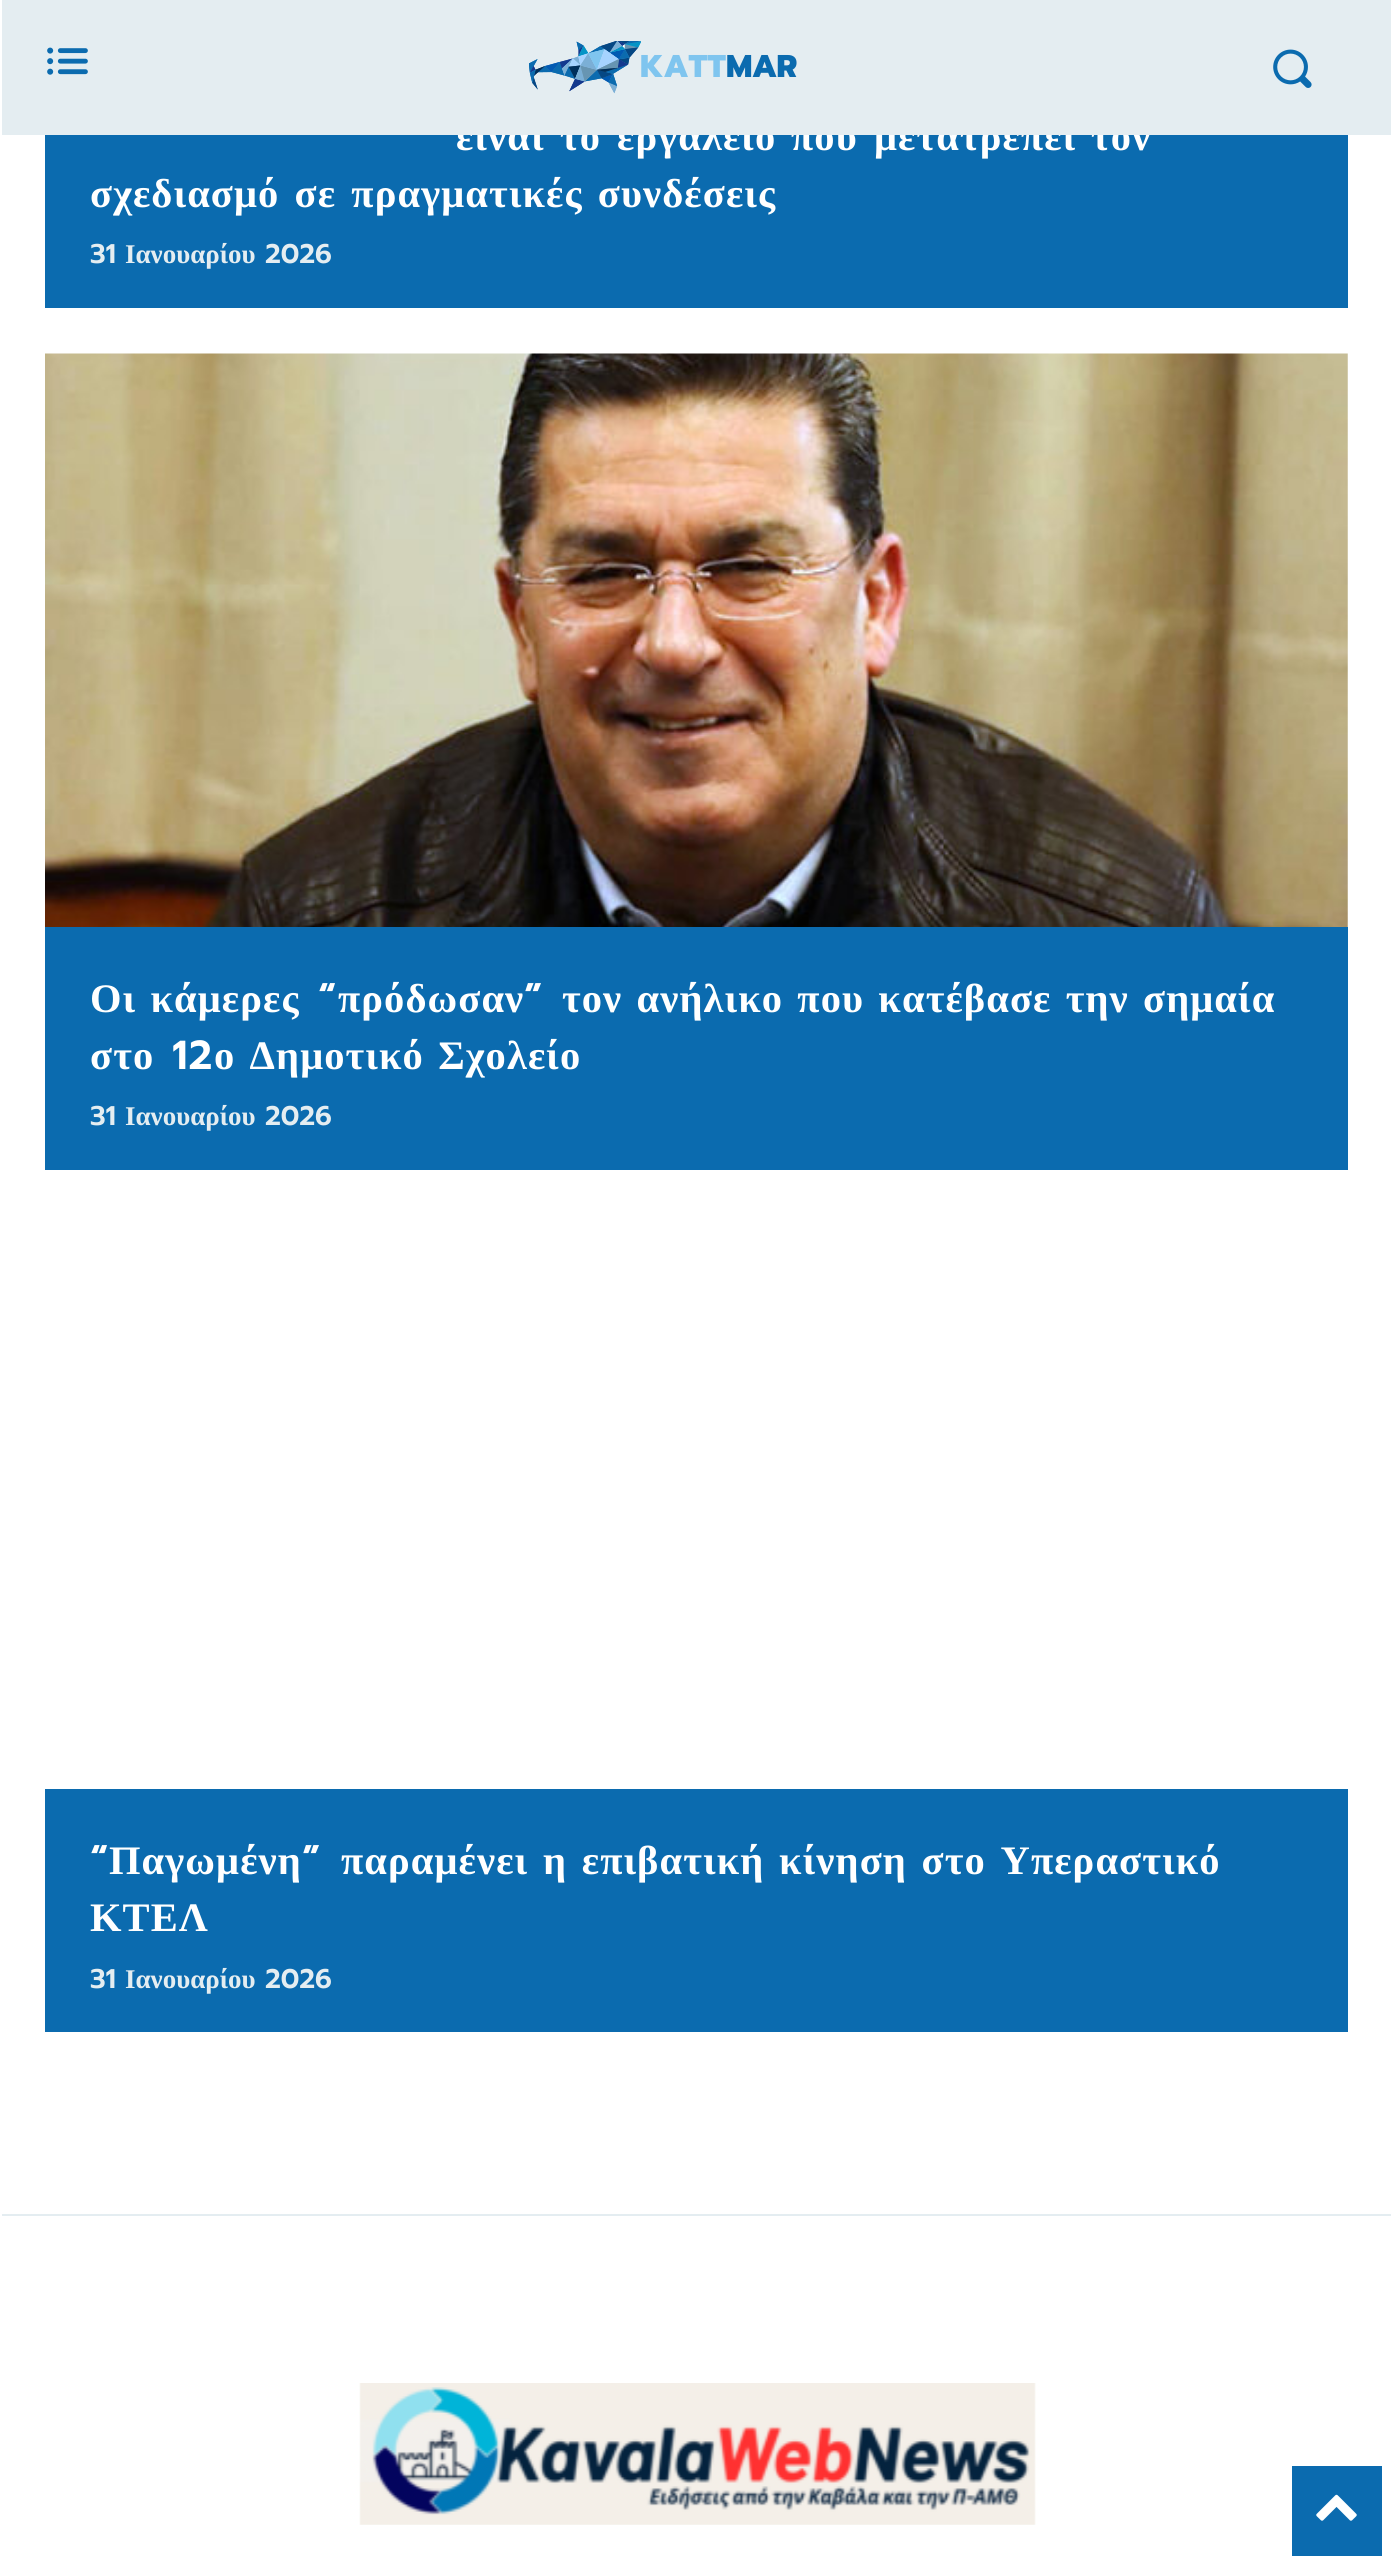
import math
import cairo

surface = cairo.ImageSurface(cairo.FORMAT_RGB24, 1391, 2563)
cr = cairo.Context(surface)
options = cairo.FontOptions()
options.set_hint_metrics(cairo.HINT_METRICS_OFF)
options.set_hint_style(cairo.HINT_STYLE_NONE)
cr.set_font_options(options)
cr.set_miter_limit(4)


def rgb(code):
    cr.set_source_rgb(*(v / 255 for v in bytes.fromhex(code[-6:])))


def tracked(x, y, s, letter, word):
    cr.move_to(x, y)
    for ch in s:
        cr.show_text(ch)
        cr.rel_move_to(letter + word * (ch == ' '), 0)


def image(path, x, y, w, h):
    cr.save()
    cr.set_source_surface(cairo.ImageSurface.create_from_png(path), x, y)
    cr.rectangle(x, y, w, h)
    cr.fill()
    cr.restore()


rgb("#ffffff")
cr.paint()
rgb("#0b6baf")
cr.rectangle(45, 135, 1303, 173)
cr.fill()
image("img/4.png", 45, 353, 1303, 574)
for x, y, w, h, color in [
    (45, 927, 1303, 243, "#0b6baf"),
    (45, 1789, 1303, 243, "#0b6baf"),
    (2, 2214, 1389, 2, "#e4edf1"),
]:
    rgb(color)
    cr.rectangle(x, y, w, h)
    cr.fill()
image("img/5.png", 359, 2383, 677, 142)
rgb("#0b6baf")
cr.rectangle(1292, 2466, 90, 90)
cr.fill()
image("img/6.png", 1316, 2494, 41, 27)
cr.select_font_face("Liberation Serif", cairo.FONT_SLANT_NORMAL, cairo.FONT_WEIGHT_BOLD)
cr.set_font_size(40.5)
rgb("#ffffff")
for x, y, s in [
    (456, 150, "είναι"),
    (560, 150, "το"),
    (617, 150, "εργαλείο"),
    (791, 150, "που"),
    (874, 150, "μετατρέπει"),
    (1091, 150, "τον"),
]:
    tracked(x, y, s, 1.1, 0)
rgb("#e4edf1")
cr.rectangle(2, 0, 1389, 135)
cr.fill()
image("img/3.png", 1273, 49, 39, 39)
image("img/2.png", 529, 41, 112, 53)
cr.select_font_face("Prompt ExtraBold")
cr.set_font_size(31.5)
rgb("#0b6baf")
tracked(726, 77, "MAR", -0.5, 0)
rgb("#7fc5ef")
cr.move_to(640, 77)
cr.show_text("KATT")
image("img/1.png", 47, 47, 41, 28)
cr.select_font_face("Liberation Serif", cairo.FONT_SLANT_NORMAL, cairo.FONT_WEIGHT_BOLD)
cr.set_font_size(40.5)
rgb("#ffffff")
tracked(90, 207, "σχεδιασμό σε πραγματικές συνδέσεις", 1.1, 4)
cr.select_font_face("Prompt SemiBold")
cr.set_font_size(27)
rgb("#e4edf1")
cr.move_to(90, 263)
cr.show_text("31")
cr.select_font_face("Liberation Serif", cairo.FONT_SLANT_NORMAL, cairo.FONT_WEIGHT_BOLD)
cr.move_to(125, 263)
cr.show_text("Ιανουαρίου")
cr.select_font_face("Prompt SemiBold")
cr.move_to(265, 263)
cr.show_text("2026")
cr.select_font_face("Liberation Serif", cairo.FONT_SLANT_NORMAL, cairo.FONT_WEIGHT_BOLD)
cr.set_font_size(40.5)
rgb("#ffffff")
tracked(90, 1012, "Οι κάμερες", 1.1, 3)
cr.select_font_face("Prompt SemiBold")
tracked(318, 1012, "“", 1.1, 0)
cr.select_font_face("Liberation Serif", cairo.FONT_SLANT_NORMAL, cairo.FONT_WEIGHT_BOLD)
tracked(338, 1012, "πρόδωσαν", 1.1, 0)
cr.select_font_face("Prompt SemiBold")
tracked(524, 1012, "”", 1.1, 0)
cr.select_font_face("Liberation Serif", cairo.FONT_SLANT_NORMAL, cairo.FONT_WEIGHT_BOLD)
tracked(562, 1012, "τον ανήλικο που κατέβασε την σημαία", 1.1, 3)
tracked(90, 1069, "στο", 1.1, 0)
cr.select_font_face("Prompt SemiBold")
tracked(172, 1069, "12", 1.1, 0)
cr.select_font_face("Liberation Serif", cairo.FONT_SLANT_NORMAL, cairo.FONT_WEIGHT_BOLD)
tracked(214, 1069, "ο Δημοτικό Σχολείο", 1.1, 3)
cr.select_font_face("Prompt SemiBold")
cr.set_font_size(27)
rgb("#e4edf1")
cr.move_to(90, 1125)
cr.show_text("31")
cr.select_font_face("Liberation Serif", cairo.FONT_SLANT_NORMAL, cairo.FONT_WEIGHT_BOLD)
cr.move_to(125, 1125)
cr.show_text("Ιανουαρίου")
cr.select_font_face("Prompt SemiBold")
cr.move_to(265, 1125)
cr.show_text("2026")
cr.set_font_size(40.5)
rgb("#ffffff")
tracked(90, 1874, "“", 1.1, 0)
cr.select_font_face("Liberation Serif", cairo.FONT_SLANT_NORMAL, cairo.FONT_WEIGHT_BOLD)
tracked(109, 1874, "Παγωμένη", 1.1, 0)
cr.select_font_face("Prompt SemiBold")
tracked(302, 1874, "”", 1.1, 0)
cr.select_font_face("Liberation Serif", cairo.FONT_SLANT_NORMAL, cairo.FONT_WEIGHT_BOLD)
tracked(341, 1874, "παραμένει η επιβατική κίνηση στο Υπεραστικό", 1.1, 3.5)
tracked(90, 1931, "ΚΤΕΛ", 1.1, 0)
cr.select_font_face("Prompt SemiBold")
cr.set_font_size(27)
rgb("#e4edf1")
cr.move_to(90, 1988)
cr.show_text("31")
cr.select_font_face("Liberation Serif", cairo.FONT_SLANT_NORMAL, cairo.FONT_WEIGHT_BOLD)
cr.move_to(125, 1988)
cr.show_text("Ιανουαρίου")
cr.select_font_face("Prompt SemiBold")
cr.move_to(265, 1988)
cr.show_text("2026")
surface.write_to_png("page.png")
